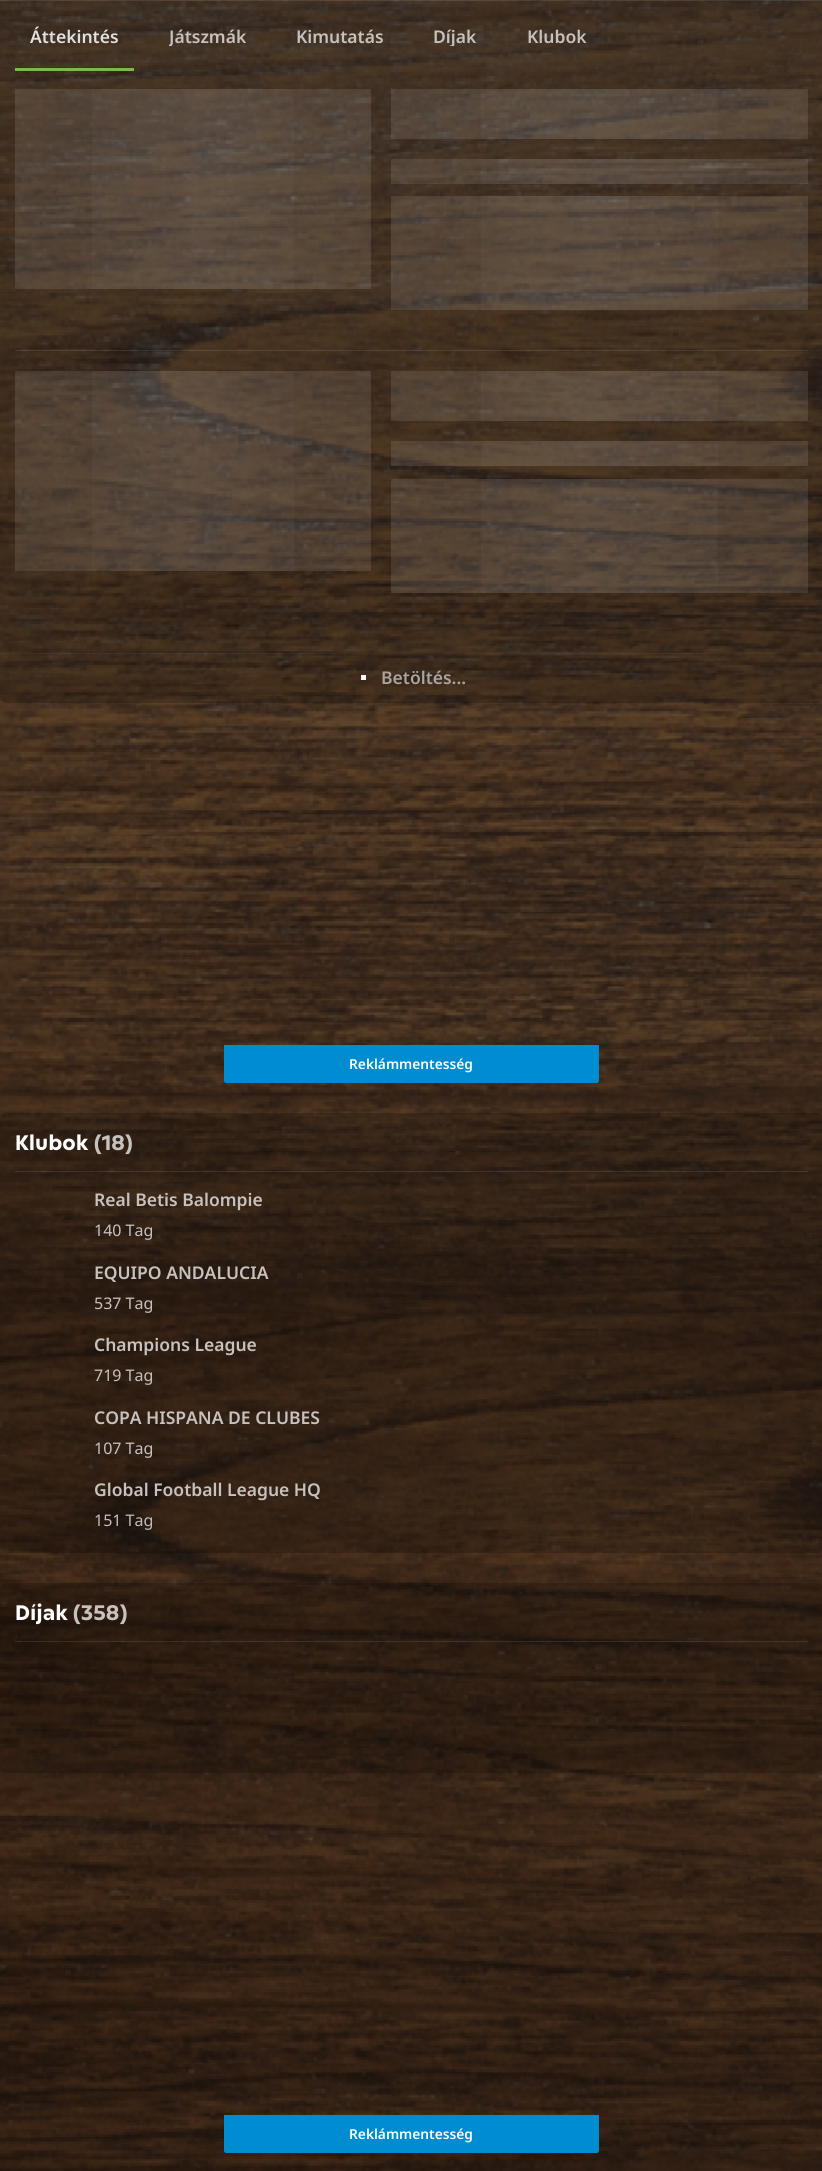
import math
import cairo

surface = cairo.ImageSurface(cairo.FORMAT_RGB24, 822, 2171)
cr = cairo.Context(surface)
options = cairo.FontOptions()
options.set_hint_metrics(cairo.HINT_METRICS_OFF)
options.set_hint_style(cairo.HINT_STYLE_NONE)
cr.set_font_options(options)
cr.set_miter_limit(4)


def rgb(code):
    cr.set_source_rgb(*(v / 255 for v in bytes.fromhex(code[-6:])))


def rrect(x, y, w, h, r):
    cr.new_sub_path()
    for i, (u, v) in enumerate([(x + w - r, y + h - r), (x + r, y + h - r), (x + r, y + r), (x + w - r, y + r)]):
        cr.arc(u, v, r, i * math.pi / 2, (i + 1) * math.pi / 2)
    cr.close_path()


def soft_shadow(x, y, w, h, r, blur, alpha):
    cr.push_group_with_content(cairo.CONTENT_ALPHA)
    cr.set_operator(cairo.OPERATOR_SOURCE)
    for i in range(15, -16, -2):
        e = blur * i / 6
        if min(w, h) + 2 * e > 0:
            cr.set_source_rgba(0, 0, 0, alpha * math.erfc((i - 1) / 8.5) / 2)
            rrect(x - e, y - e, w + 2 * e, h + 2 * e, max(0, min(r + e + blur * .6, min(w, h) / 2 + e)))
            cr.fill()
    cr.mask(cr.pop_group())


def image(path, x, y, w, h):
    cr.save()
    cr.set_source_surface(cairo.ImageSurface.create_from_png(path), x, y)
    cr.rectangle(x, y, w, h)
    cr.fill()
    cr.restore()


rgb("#ffffff")
cr.paint()
image("img/1.png", 0, 71, 822, 2100)
cr.set_source_rgba(0, 0, 0, 0.2)
rrect(0, -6, 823, 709, 6)
cr.fill()
image("img/2.png", 0, 0, 822, 71)
cr.save()
cr.rectangle(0, 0, 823, 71)
cr.clip()
cr.set_fill_rule(cairo.FILL_RULE_EVEN_ODD)
cr.new_path()
cr.move_to(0, 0)
cr.line_to(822, 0)
cr.line_to(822, 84)
cr.line_to(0, 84)
cr.close_path()
cr.move_to(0, 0)
cr.line_to(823, 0)
cr.line_to(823, 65)
cr.curve_to(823, 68.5, 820.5, 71, 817, 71)
cr.line_to(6, 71)
cr.curve_to(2.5, 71, 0, 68.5, 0, 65)
cr.close_path()
cr.clip()
rgb("#000000")
soft_shadow(0, 3, 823, 71, 6, 3, 0.3)
cr.restore()
cr.new_path()
cr.move_to(0, 0)
cr.line_to(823, 0)
cr.line_to(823, 65)
cr.curve_to(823, 68.5, 820.5, 71, 817, 71)
cr.line_to(6, 71)
cr.curve_to(2.5, 71, 0, 68.5, 0, 65)
cr.close_path()
cr.fill()
cr.set_source_rgba(1, 1, 1, 0.1)
cr.rectangle(0, 0, 822, 1)
cr.fill()
rgb("#81b64c")
cr.rectangle(15, 68, 119, 3)
cr.fill()
cr.set_source_rgba(1, 1, 1, 0.1)
cr.rectangle(15, 350, 793, 1)
cr.fill()
cr.rectangle(15, 89, 356, 200)
cr.fill()
gradient = cairo.LinearGradient(15, 189, 371, 189)
gradient.add_color_stop_rgba(0, 1, 1, 1, 0)
gradient.add_color_stop_rgba(0.5, 1, 1, 1, 0.05)
gradient.add_color_stop_rgba(1, 1, 1, 1, 0)
cr.set_source(gradient)
cr.rectangle(92, 89, 202, 200)
cr.fill()
cr.set_source_rgba(1, 1, 1, 0.1)
cr.rectangle(391, 89, 417, 50)
cr.fill()
gradient = cairo.LinearGradient(391, 114, 808, 114)
gradient.add_color_stop_rgba(0, 1, 1, 1, 0)
gradient.add_color_stop_rgba(0.5, 1, 1, 1, 0.05)
gradient.add_color_stop_rgba(1, 1, 1, 1, 0)
cr.set_source(gradient)
cr.rectangle(481, 89, 237, 50)
cr.fill()
cr.set_source_rgba(1, 1, 1, 0.1)
cr.rectangle(391, 159, 417, 25)
cr.fill()
gradient = cairo.LinearGradient(391, 171, 808, 171)
gradient.add_color_stop_rgba(0, 1, 1, 1, 0)
gradient.add_color_stop_rgba(0.5, 1, 1, 1, 0.05)
gradient.add_color_stop_rgba(1, 1, 1, 1, 0)
cr.set_source(gradient)
cr.rectangle(481, 159, 237, 25)
cr.fill()
cr.set_source_rgba(1, 1, 1, 0.1)
cr.rectangle(391, 196, 417, 114)
cr.fill()
gradient = cairo.LinearGradient(391, 253, 808, 253)
gradient.add_color_stop_rgba(0, 1, 1, 1, 0)
gradient.add_color_stop_rgba(0.5, 1, 1, 1, 0.05)
gradient.add_color_stop_rgba(1, 1, 1, 1, 0)
cr.set_source(gradient)
cr.rectangle(481, 196, 237, 114)
cr.fill()
cr.set_source_rgba(1, 1, 1, 0.1)
cr.rectangle(15, 371, 356, 200)
cr.fill()
gradient = cairo.LinearGradient(15, 471, 371, 471)
gradient.add_color_stop_rgba(0, 1, 1, 1, 0)
gradient.add_color_stop_rgba(0.5, 1, 1, 1, 0.05)
gradient.add_color_stop_rgba(1, 1, 1, 1, 0)
cr.set_source(gradient)
cr.rectangle(92, 371, 202, 200)
cr.fill()
cr.set_source_rgba(1, 1, 1, 0.1)
cr.rectangle(391, 371, 417, 50)
cr.fill()
gradient = cairo.LinearGradient(391, 396, 808, 396)
gradient.add_color_stop_rgba(0, 1, 1, 1, 0)
gradient.add_color_stop_rgba(0.5, 1, 1, 1, 0.05)
gradient.add_color_stop_rgba(1, 1, 1, 1, 0)
cr.set_source(gradient)
cr.rectangle(481, 371, 237, 50)
cr.fill()
cr.set_source_rgba(1, 1, 1, 0.1)
cr.rectangle(391, 441, 417, 25)
cr.fill()
gradient = cairo.LinearGradient(391, 454, 808, 454)
gradient.add_color_stop_rgba(0, 1, 1, 1, 0)
gradient.add_color_stop_rgba(0.5, 1, 1, 1, 0.05)
gradient.add_color_stop_rgba(1, 1, 1, 1, 0)
cr.set_source(gradient)
cr.rectangle(481, 441, 237, 25)
cr.fill()
cr.set_source_rgba(1, 1, 1, 0.1)
cr.rectangle(391, 479, 417, 114)
cr.fill()
gradient = cairo.LinearGradient(391, 536, 808, 536)
gradient.add_color_stop_rgba(0, 1, 1, 1, 0)
gradient.add_color_stop_rgba(0.5, 1, 1, 1, 0.05)
gradient.add_color_stop_rgba(1, 1, 1, 1, 0)
cr.set_source(gradient)
cr.rectangle(481, 479, 237, 114)
cr.fill()
cr.set_source_rgba(1, 1, 1, 0.04)
cr.new_path()
cr.move_to(0, 654)
cr.line_to(0, 653)
cr.line_to(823, 653)
cr.line_to(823, 697)
cr.curve_to(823, 699, 822, 700, 821, 701)
cr.curve_to(822, 700, 822, 699, 822, 698)
cr.line_to(822, 654)
cr.close_path()
cr.fill()
rgb("#fdfdfd")
cr.rectangle(361, 675, 5, 5)
cr.fill()
rgb("#008cd1")
cr.new_path()
cr.move_to(224, 1045)
cr.line_to(599, 1045)
cr.line_to(599, 1080.5)
cr.curve_to(599, 1082, 598, 1083, 596.5, 1083)
cr.line_to(226.5, 1083)
cr.curve_to(225, 1083, 224, 1082, 224, 1080.5)
cr.close_path()
cr.fill()
cr.set_source_rgba(0, 0, 0, 0.2)
rrect(0, 1113, 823, 440, 6)
cr.fill()
cr.set_source_rgba(1, 1, 1, 0.1)
cr.rectangle(15, 1171, 793, 1)
cr.fill()
cr.set_source_rgba(0, 0, 0, 0.2)
rrect(0, 1583, 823, 190, 6)
cr.fill()
cr.set_source_rgba(1, 1, 1, 0.1)
cr.rectangle(15, 1641, 793, 1)
cr.fill()
rgb("#008cd1")
cr.new_path()
cr.move_to(224, 2115)
cr.line_to(599, 2115)
cr.line_to(599, 2150.5)
cr.curve_to(599, 2152, 598, 2153, 596.5, 2153)
cr.line_to(226.5, 2153)
cr.curve_to(225, 2153, 224, 2152, 224, 2150.5)
cr.close_path()
cr.fill()
cr.select_font_face("Noto Sans SemiBold")
cr.set_font_size(17.5)
rgb("#e2e0de")
cr.move_to(30, 43)
cr.show_text("Áttekintés")
cr.save()
cr.rectangle(169, 26, 77, 20)
cr.clip()
rgb("#c7c2be")
cr.move_to(169, 43)
cr.show_text("Játszmák")
cr.restore()
rgb("#c7c2be")
cr.move_to(296, 43)
cr.show_text("Kimutatás")
cr.save()
cr.rectangle(434, 26, 42, 20)
cr.clip()
cr.move_to(433, 43)
cr.show_text("Díjak")
cr.restore()
cr.move_to(527, 43)
cr.show_text("Klubok")
rgb("#aba49e")
cr.move_to(381, 684)
cr.show_text("Betöltés...")
cr.set_font_size(13.75)
rgb("#ffffff")
cr.move_to(349, 1069)
cr.show_text("Reklámmentesség")
cr.select_font_face("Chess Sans", cairo.FONT_SLANT_NORMAL, cairo.FONT_WEIGHT_BOLD)
cr.set_font_size(21)
cr.move_to(15, 1150)
cr.show_text("Klubok")
rgb("#c7c2be")
cr.move_to(94, 1150)
cr.show_text("(18)")
cr.select_font_face("Noto Sans SemiBold")
cr.set_font_size(17.5)
cr.move_to(94, 1206)
cr.show_text("Real Betis Balompie")
cr.select_font_face("Noto Sans")
cr.set_font_size(16)
cr.move_to(94, 1236)
cr.show_text("140 Tag")
cr.select_font_face("Noto Sans SemiBold")
cr.set_font_size(17.5)
cr.move_to(94, 1279)
cr.show_text("EQUIPO ANDALUCIA")
cr.select_font_face("Noto Sans")
cr.set_font_size(16)
cr.move_to(94, 1309)
cr.show_text("537 Tag")
cr.select_font_face("Noto Sans SemiBold")
cr.set_font_size(17.5)
cr.move_to(94, 1351)
cr.show_text("Champions League")
cr.select_font_face("Noto Sans")
cr.set_font_size(16)
cr.move_to(94, 1381)
cr.show_text("719 Tag")
cr.select_font_face("Noto Sans SemiBold")
cr.set_font_size(17.5)
cr.move_to(94, 1424)
cr.show_text("COPA HISPANA DE CLUBES")
cr.select_font_face("Noto Sans")
cr.set_font_size(16)
cr.move_to(94, 1454)
cr.show_text("107 Tag")
cr.select_font_face("Noto Sans SemiBold")
cr.set_font_size(17.5)
cr.move_to(94, 1496)
cr.show_text("Global Football League HQ")
cr.select_font_face("Noto Sans")
cr.set_font_size(16)
rgb("#c1bebc")
cr.move_to(94, 1526)
cr.show_text("151 Tag")
cr.select_font_face("Chess Sans", cairo.FONT_SLANT_NORMAL, cairo.FONT_WEIGHT_BOLD)
cr.set_font_size(21)
rgb("#ffffff")
cr.move_to(15, 1620)
cr.show_text("Díjak")
rgb("#c7c2be")
cr.move_to(73, 1620)
cr.show_text("(358)")
cr.select_font_face("Noto Sans SemiBold")
cr.set_font_size(13.75)
rgb("#ffffff")
cr.move_to(349, 2139)
cr.show_text("Reklámmentesség")
surface.write_to_png("page.png")
